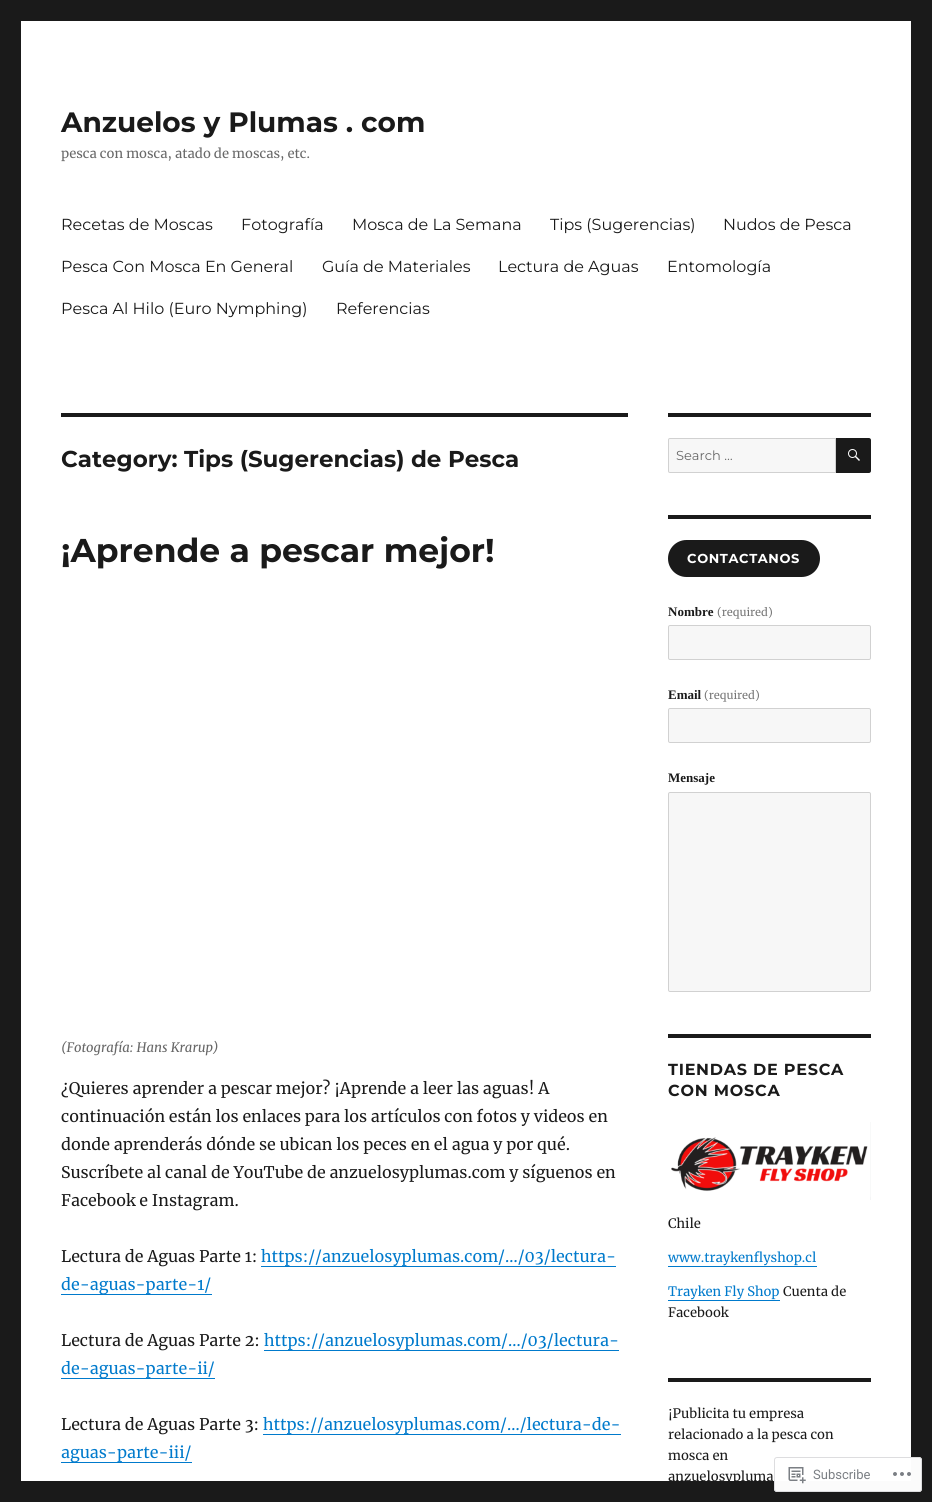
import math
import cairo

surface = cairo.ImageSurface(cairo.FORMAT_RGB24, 932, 1502)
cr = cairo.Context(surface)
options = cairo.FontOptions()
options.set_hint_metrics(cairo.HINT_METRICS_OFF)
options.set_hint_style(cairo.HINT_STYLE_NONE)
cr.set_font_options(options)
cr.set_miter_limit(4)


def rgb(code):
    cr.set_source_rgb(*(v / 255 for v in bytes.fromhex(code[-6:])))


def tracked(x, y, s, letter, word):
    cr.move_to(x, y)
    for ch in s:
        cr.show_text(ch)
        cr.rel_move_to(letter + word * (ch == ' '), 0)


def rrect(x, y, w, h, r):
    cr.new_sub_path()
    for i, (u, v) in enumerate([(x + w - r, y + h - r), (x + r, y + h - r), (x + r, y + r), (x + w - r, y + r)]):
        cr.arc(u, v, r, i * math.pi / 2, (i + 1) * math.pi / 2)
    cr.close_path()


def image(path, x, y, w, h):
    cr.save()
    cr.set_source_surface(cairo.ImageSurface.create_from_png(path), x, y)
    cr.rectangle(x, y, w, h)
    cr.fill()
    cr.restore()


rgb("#1a1a1a")
cr.paint()
for x, y, w, h, color in [
    (21, 21, 890, 1460, "#ffffff"),
    (61, 413, 567, 4, "#1a1a1a"),
    (261, 1266, 355, 1, "#007acc"),
    (61, 1294, 151, 1, "#007acc"),
    (264, 1350, 355, 1, "#007acc"),
    (61, 1378, 154, 1, "#007acc"),
    (263, 1434, 358, 1, "#007acc"),
    (61, 1462, 131, 1, "#007acc"),
    (668, 413, 203, 4, "#1a1a1a"),
]:
    rgb(color)
    cr.rectangle(x, y, w, h)
    cr.fill()
rgb("#f7f7f7")
cr.new_path()
cr.move_to(670, 438.5)
cr.line_to(835.5, 438.5)
cr.line_to(835.5, 472.5)
cr.line_to(670, 472.5)
cr.curve_to(669, 472.5, 668.5, 472, 668.5, 471)
cr.line_to(668.5, 440)
cr.curve_to(668.5, 439, 669, 438.5, 670, 438.5)
cr.close_path()
cr.fill_preserve()
rgb("#d1d1d1")
cr.set_line_width(1)
cr.stroke()
rgb("#1a1a1a")
cr.new_path()
cr.move_to(836, 438)
cr.line_to(869, 438)
cr.curve_to(870, 438, 871, 439, 871, 440)
cr.line_to(871, 471)
cr.curve_to(871, 472, 870, 473, 869, 473)
cr.line_to(836, 473)
cr.close_path()
cr.fill()
image("img/1.png", 848, 449, 12, 12)
cr.rectangle(668, 515, 203, 4)
cr.fill()
rrect(668, 540, 152, 37, 18.5)
cr.fill()
rgb("#f7f7f7")
rrect(668.5, 625.5, 202, 34, 1.5)
cr.fill_preserve()
rgb("#d1d1d1")
cr.stroke()
rgb("#f7f7f7")
rrect(668.5, 708.5, 202, 34, 1.5)
cr.fill_preserve()
rgb("#d1d1d1")
cr.stroke()
rgb("#f7f7f7")
rrect(668.5, 792.5, 202, 199, 1.5)
cr.fill_preserve()
rgb("#d1d1d1")
cr.stroke()
rgb("#1a1a1a")
cr.rectangle(668, 1034, 203, 4)
cr.fill()
image("img/2.png", 671, 1122, 200, 78)
for x, y, w, h, color in [
    (668, 1266, 149, 1, "#007acc"),
    (668, 1300, 112, 1, "#007acc"),
    (668, 1378, 203, 4, "#1a1a1a"),
]:
    rgb(color)
    cr.rectangle(x, y, w, h)
    cr.fill()
cr.set_source_rgba(1, 1, 1, 0.98)
rrect(774, 1457, 148, 35, 3)
cr.fill()
rrect(774.5, 1457.5, 147, 34, 2.5)
cr.set_source_rgba(0.863, 0.863, 0.871, 0.98)
cr.stroke()
image("img/3.png", 788, 1467, 18, 17)
image("img/4.png", 893, 1472, 18, 4)
cr.select_font_face("Montserrat Thin")
cr.set_font_size(28)
rgb("#1a1a1a")
cr.move_to(61, 132)
cr.show_text("Anzuelos y Plumas . com")
cr.select_font_face("Merriweather")
cr.set_font_size(13)
rgb("#686868")
cr.move_to(61, 158)
cr.show_text("pesca con mosca, atado de moscas, etc.")
cr.select_font_face("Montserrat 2 Thin")
cr.set_font_size(16)
rgb("#1a1a1a")
for x, y, s in [
    (61, 230, "Recetas de Moscas"),
    (241, 230, "Fotografía"),
    (352, 230, "Mosca de La Semana"),
    (550, 230, "Tips (Sugerencias)"),
    (723, 230, "Nudos de Pesca"),
    (61, 272, "Pesca Con Mosca En General"),
    (322, 272, "Guía de Materiales"),
    (498, 272, "Lectura de Aguas"),
    (667, 272, "Entomología"),
    (61, 314, "Pesca Al Hilo (Euro Nymphing)"),
    (336, 314, "Referencias"),
]:
    cr.move_to(x, y)
    cr.show_text(s)
cr.select_font_face("Montserrat Thin")
cr.set_font_size(23)
cr.move_to(61, 467)
cr.show_text("Category: Tips (Sugerencias) de Pesca")
cr.set_font_size(33)
cr.move_to(61, 562)
cr.show_text("¡Aprende a pescar mejor!")
cr.select_font_face("Merriweather", cairo.FONT_SLANT_ITALIC)
cr.set_font_size(13)
rgb("#686868")
cr.move_to(61, 1052)
cr.show_text("(Fotografía: Hans Krarup)")
cr.select_font_face("Merriweather")
cr.set_font_size(16)
rgb("#1a1a1a")
for x, y, s in [
    (61, 1094, "¿Quieres aprender a pescar mejor? ¡Aprende a leer las aguas! A"),
    (61, 1122, "continuación están los enlaces para los artículos con fotos y videos en"),
    (61, 1150, "donde aprenderás dónde se ubican los peces en el agua y por qué."),
    (61, 1178, "Suscríbete al canal de YouTube de anzuelosyplumas.com y síguenos en"),
    (61, 1206, "Facebook e Instagram."),
    (61, 1262, "Lectura de Aguas Parte 1:"),
]:
    cr.move_to(x, y)
    cr.show_text(s)
rgb("#007acc")
cr.move_to(261, 1262)
cr.show_text("https://anzuelosyplumas.com/…/03/lectura-")
cr.move_to(61, 1290)
cr.show_text("de-aguas-parte-1/")
rgb("#1a1a1a")
cr.move_to(61, 1346)
cr.show_text("Lectura de Aguas Parte 2:")
rgb("#007acc")
cr.move_to(264, 1346)
cr.show_text("https://anzuelosyplumas.com/…/03/lectura-")
cr.move_to(61, 1374)
cr.show_text("de-aguas-parte-ii/")
rgb("#1a1a1a")
cr.move_to(61, 1430)
cr.show_text("Lectura de Aguas Parte 3:")
rgb("#007acc")
cr.move_to(263, 1430)
cr.show_text("https://anzuelosyplumas.com/…/lectura-de-")
cr.move_to(61, 1458)
cr.show_text("aguas-parte-iii/")
cr.select_font_face("Montserrat 2 Thin")
cr.set_font_size(13)
rgb("#686868")
cr.move_to(676, 460)
cr.show_text("Search …")
cr.select_font_face("Montserrat Thin")
rgb("#ffffff")
tracked(687, 563, "CONTACTANOS", 0.6, 0)
cr.select_font_face("Liberation Serif", cairo.FONT_SLANT_NORMAL, cairo.FONT_WEIGHT_BOLD)
rgb("#1a1a1a")
cr.move_to(668, 616)
cr.show_text("Nombre")
cr.select_font_face("Merriweather")
cr.set_font_size(11)
rgb("#767676")
cr.move_to(717, 616)
cr.show_text("(required)")
cr.select_font_face("Liberation Serif", cairo.FONT_SLANT_NORMAL, cairo.FONT_WEIGHT_BOLD)
cr.set_font_size(13)
rgb("#1a1a1a")
cr.move_to(668, 699)
cr.show_text("Email")
cr.select_font_face("Merriweather")
cr.set_font_size(11)
rgb("#767676")
cr.move_to(704, 699)
cr.show_text("(required)")
cr.select_font_face("Liberation Serif", cairo.FONT_SLANT_NORMAL, cairo.FONT_WEIGHT_BOLD)
cr.set_font_size(13)
rgb("#1a1a1a")
cr.move_to(668, 782)
cr.show_text("Mensaje")
cr.select_font_face("Montserrat Thin")
cr.set_font_size(16)
tracked(668, 1075, "TIENDAS DE PESCA", 0.75, 0)
tracked(668, 1096, "CON MOSCA", 0.75, 0)
cr.select_font_face("Merriweather")
cr.set_font_size(13)
cr.move_to(668, 1228)
cr.show_text("Chile")
rgb("#007acc")
cr.move_to(668, 1262)
cr.show_text("www.traykenflyshop.cl")
cr.move_to(668, 1296)
cr.show_text("Trayken Fly Shop")
rgb("#1a1a1a")
for x, y, s in [
    (783, 1296, "Cuenta de"),
    (668, 1317, "Facebook"),
    (668, 1418, "¡Publicita tu empresa"),
    (668, 1439, "relacionado a la pesca con"),
    (668, 1460, "mosca en"),
    (668, 1481, "anzuelosypluma"),
]:
    cr.move_to(x, y)
    cr.show_text(s)
cr.select_font_face("Roboto")
rgb("#7b7f84")
cr.move_to(813, 1479)
cr.show_text("Subscribe")
surface.write_to_png("page.png")
